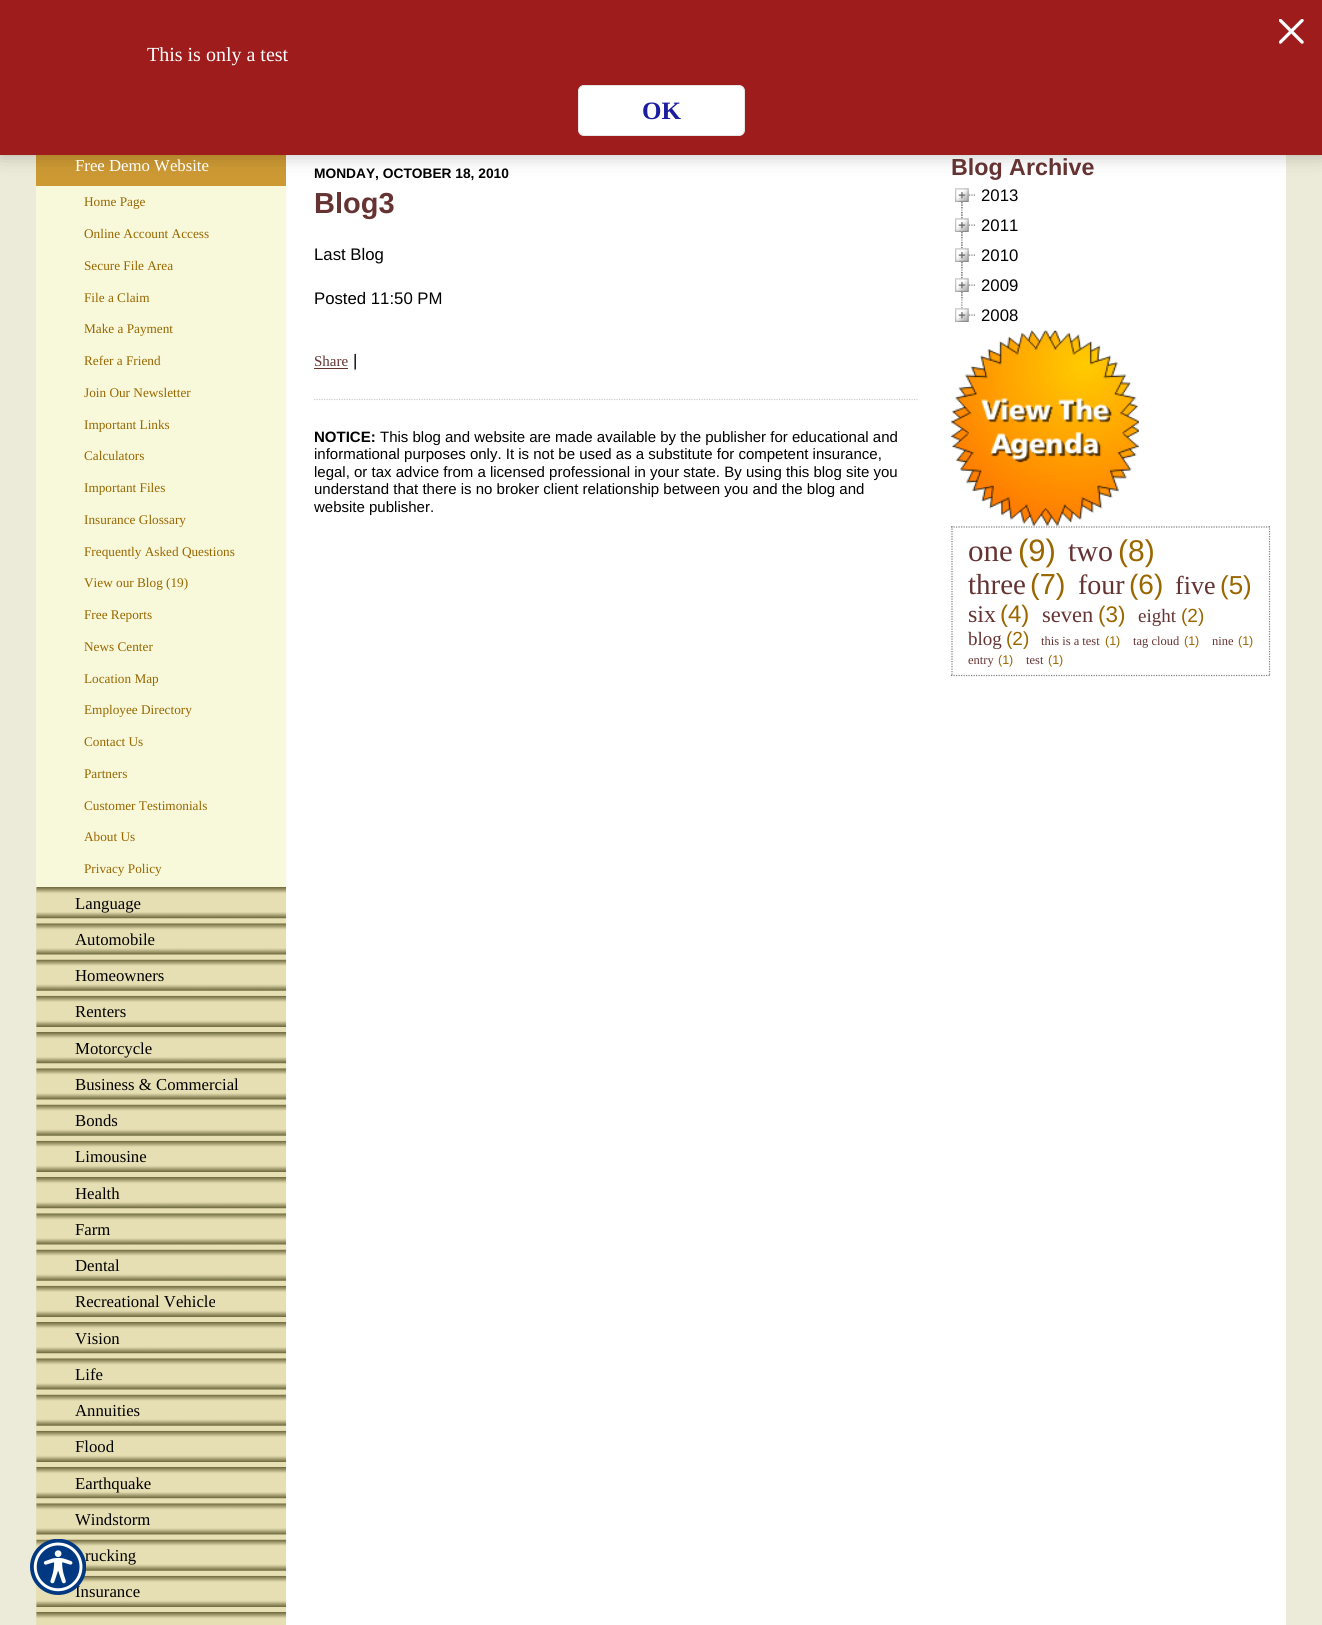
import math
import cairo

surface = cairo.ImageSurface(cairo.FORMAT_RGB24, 1322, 1625)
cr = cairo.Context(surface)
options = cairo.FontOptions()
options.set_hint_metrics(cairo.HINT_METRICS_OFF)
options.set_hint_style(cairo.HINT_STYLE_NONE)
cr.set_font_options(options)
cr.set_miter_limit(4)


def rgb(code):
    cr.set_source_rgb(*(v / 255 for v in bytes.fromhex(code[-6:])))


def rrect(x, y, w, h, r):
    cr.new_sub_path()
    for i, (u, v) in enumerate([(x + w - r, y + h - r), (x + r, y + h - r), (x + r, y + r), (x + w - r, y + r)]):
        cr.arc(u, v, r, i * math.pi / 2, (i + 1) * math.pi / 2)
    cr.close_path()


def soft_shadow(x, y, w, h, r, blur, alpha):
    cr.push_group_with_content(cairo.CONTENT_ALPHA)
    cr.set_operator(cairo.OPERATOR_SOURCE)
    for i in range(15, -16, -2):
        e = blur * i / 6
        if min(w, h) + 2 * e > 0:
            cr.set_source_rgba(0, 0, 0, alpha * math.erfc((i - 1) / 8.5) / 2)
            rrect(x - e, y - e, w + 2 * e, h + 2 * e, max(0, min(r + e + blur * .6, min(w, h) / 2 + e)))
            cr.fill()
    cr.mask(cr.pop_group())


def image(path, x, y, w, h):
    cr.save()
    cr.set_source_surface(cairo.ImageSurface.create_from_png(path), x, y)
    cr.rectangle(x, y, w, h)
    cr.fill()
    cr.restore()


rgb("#ecead8")
cr.paint()
rgb("#cc9933")
cr.rectangle(36, 155, 250, 31)
cr.fill()
rgb("#ffffff")
cr.rectangle(286, 155, 1000, 1470)
cr.fill()
rgb("#000000")
soft_shadow(0, 0, 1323, 155, 0, 9.5, 0.25)
rgb("#9e1c1c")
cr.rectangle(0, 0, 1322, 155)
cr.fill()
image("img/1.png", 1279, 19, 25, 25)
rgb("#ffffff")
rrect(578.5, 85.5, 166, 50, 5.5)
cr.fill_preserve()
rgb("#e6e6e6")
cr.set_line_width(1)
cr.stroke()
rgb("#f8f9da")
cr.rectangle(36, 186, 250, 702)
cr.fill()
rgb("#e7e0b4")
cr.rectangle(36, 888, 250, 688)
cr.fill()
image("img/3.png", 36, 887, 251, 32)
image("img/4.png", 36, 923, 251, 32)
image("img/5.png", 36, 959, 251, 32)
image("img/6.png", 36, 995, 251, 32)
image("img/7.png", 36, 1032, 251, 32)
image("img/4.png", 36, 1068, 251, 32)
image("img/8.png", 36, 1104, 251, 32)
image("img/9.png", 36, 1140, 251, 32)
image("img/10.png", 36, 1177, 251, 32)
image("img/11.png", 36, 1213, 251, 32)
image("img/12.png", 36, 1249, 251, 32)
image("img/13.png", 36, 1285, 251, 32)
image("img/10.png", 36, 1322, 251, 32)
image("img/14.png", 36, 1358, 251, 32)
image("img/15.png", 36, 1394, 251, 32)
image("img/9.png", 36, 1430, 251, 32)
image("img/16.png", 36, 1467, 251, 32)
image("img/17.png", 36, 1503, 251, 32)
image("img/15.png", 36, 1539, 251, 32)
cr.rectangle(36, 1584, 250, 29)
cr.fill()
image("img/18.png", 36, 1575, 251, 32)
cr.rectangle(36, 1613, 1, 12)
cr.fill()
image("img/19.png", 36, 1612, 251, 13)
rgb("#663333")
cr.rectangle(314, 368, 34, 1)
cr.fill()
cr.new_path()
cr.move_to(314, 399.5)
cr.line_to(917.5, 399.5)
rgb("#cccccc")
cr.set_line_width(1.2)
cr.set_dash([1.25, 1.25])
cr.stroke()
image("img/20.png", 961, 202, 2, 9)
image("img/21.png", 961, 194, 14, 15)
image("img/22.png", 955, 188, 14, 14)
image("img/23.png", 961, 210, 2, 31)
image("img/24.png", 961, 211, 14, 28)
image("img/25.png", 955, 218, 14, 14)
image("img/26.png", 961, 240, 2, 31)
image("img/27.png", 961, 241, 14, 28)
image("img/28.png", 955, 248, 14, 14)
image("img/26.png", 961, 270, 2, 31)
image("img/24.png", 961, 271, 14, 28)
image("img/29.png", 955, 278, 14, 14)
image("img/30.png", 961, 301, 14, 15)
image("img/31.png", 955, 308, 14, 14)
image("img/32.png", 951, 330, 188, 196)
cr.new_path()
cr.move_to(951, 527)
cr.line_to(1270, 527)
rgb("#7f7f7f")
cr.stroke()
cr.new_path()
cr.move_to(1269.5, 526)
cr.line_to(1269.5, 676)
cr.stroke()
cr.new_path()
cr.move_to(951, 675.5)
cr.line_to(1270, 675.5)
cr.stroke()
cr.new_path()
cr.move_to(952, 526)
cr.line_to(952, 676)
cr.stroke()
cr.select_font_face("Liberation Serif")
cr.set_font_size(20)
rgb("#ffffff")
cr.move_to(147, 61)
cr.show_text("This is only a test")
cr.select_font_face("Liberation Serif", cairo.FONT_SLANT_NORMAL, cairo.FONT_WEIGHT_BOLD)
cr.set_font_size(25)
rgb("#1c1c9e")
cr.move_to(642, 119)
cr.show_text("OK")
cr.select_font_face("Liberation Serif")
cr.set_font_size(16.75)
rgb("#ffffff")
cr.move_to(75, 171)
cr.show_text("Free Demo Website")
cr.set_font_size(13.25)
rgb("#996600")
for x, y, s in [
    (84, 206, "Home Page"),
    (84, 238, "Online Account Access"),
    (84, 270, "Secure File Area"),
    (84, 302, "File a Claim"),
    (84, 333, "Make a Payment"),
    (84, 365, "Refer a Friend"),
    (84, 397, "Join Our Newsletter"),
    (84, 429, "Important Links"),
    (84, 460, "Calculators"),
    (84, 492, "Important Files"),
    (84, 524, "Insurance Glossary"),
    (84, 556, "Frequently Asked Questions"),
    (84, 587, "View our Blog (19)"),
    (84, 619, "Free Reports"),
    (84, 651, "News Center"),
    (84, 683, "Location Map"),
    (84, 714, "Employee Directory"),
    (84, 746, "Contact Us"),
    (84, 778, "Partners"),
    (84, 810, "Customer Testimonials"),
    (84, 841, "About Us"),
    (84, 873, "Privacy Policy"),
]:
    cr.move_to(x, y)
    cr.show_text(s)
cr.set_font_size(16.75)
rgb("#000000")
for x, y, s in [
    (75, 909, "Language"),
    (75, 945, "Automobile"),
    (75, 981, "Homeowners"),
    (75, 1017, "Renters"),
    (75, 1054, "Motorcycle"),
    (75, 1090, "Business & Commercial"),
    (75, 1126, "Bonds"),
    (75, 1162, "Limousine"),
    (75, 1199, "Health"),
    (75, 1235, "Farm"),
    (75, 1271, "Dental"),
    (75, 1307, "Recreational Vehicle"),
    (75, 1344, "Vision"),
    (75, 1380, "Life"),
    (75, 1416, "Annuities"),
    (75, 1452, "Flood"),
    (75, 1489, "Earthquake"),
    (75, 1525, "Windstorm"),
    (85, 1561, "rucking"),
    (75, 1597, "Insurance"),
]:
    cr.move_to(x, y)
    cr.show_text(s)
image("img/2.png", 30, 1539, 56, 56)
cr.select_font_face("Liberation Sans", cairo.FONT_SLANT_NORMAL, cairo.FONT_WEIGHT_BOLD)
cr.set_font_size(13.75)
cr.move_to(314, 178)
cr.show_text("MONDAY, OCTOBER 18, 2010")
cr.set_font_size(29)
rgb("#663333")
cr.move_to(314, 213)
cr.show_text("Blog3")
cr.select_font_face("Liberation Sans")
cr.set_font_size(16.75)
rgb("#000000")
cr.move_to(314, 260)
cr.show_text("Last Blog")
cr.move_to(314, 304)
cr.show_text("Posted 11:50 PM")
cr.select_font_face("Liberation Serif")
cr.set_font_size(15)
rgb("#663333")
cr.move_to(314, 366)
cr.show_text("Share")
cr.select_font_face("Liberation Sans")
cr.set_font_size(16.75)
rgb("#000000")
cr.move_to(353, 366)
cr.show_text("|")
cr.select_font_face("Liberation Sans", cairo.FONT_SLANT_NORMAL, cairo.FONT_WEIGHT_BOLD)
cr.set_font_size(15)
cr.move_to(314, 442)
cr.show_text("NOTICE:")
cr.select_font_face("Liberation Sans")
for x, y, s in [
    (380, 442, "This blog and website are made available by the publisher for educational and"),
    (314, 459, "informational purposes only. It is not be used as a substitute for competent insurance,"),
    (314, 477, "legal, or tax advice from a licensed professional in your state. By using this blog site you"),
    (314, 494, "understand that there is no broker client relationship between you and the blog and"),
    (314, 512, "website publisher."),
]:
    cr.move_to(x, y)
    cr.show_text(s)
cr.select_font_face("Liberation Sans", cairo.FONT_SLANT_NORMAL, cairo.FONT_WEIGHT_BOLD)
cr.set_font_size(23.25)
rgb("#663333")
cr.move_to(951, 175)
cr.show_text("Blog Archive")
cr.select_font_face("Liberation Sans")
cr.set_font_size(16.75)
rgb("#000000")
for x, y, s in [
    (981, 201, "2013"),
    (981, 231, "2011"),
    (981, 261, "2010"),
    (981, 291, "2009"),
    (981, 321, "2008"),
]:
    cr.move_to(x, y)
    cr.show_text(s)
cr.select_font_face("Liberation Serif")
cr.set_font_size(31)
rgb("#663333")
cr.move_to(968, 561)
cr.show_text("one")
cr.select_font_face("Liberation Sans")
rgb("#996600")
cr.move_to(1018, 561)
cr.show_text("(9)")
cr.select_font_face("Liberation Serif")
cr.set_font_size(30)
rgb("#663333")
cr.move_to(1068, 561)
cr.show_text("two")
cr.select_font_face("Liberation Sans")
rgb("#996600")
cr.move_to(1118, 561)
cr.show_text("(8)")
cr.select_font_face("Liberation Serif")
cr.set_font_size(29)
rgb("#663333")
cr.move_to(968, 594)
cr.show_text("three")
cr.select_font_face("Liberation Sans")
rgb("#996600")
cr.move_to(1030, 594)
cr.show_text("(7)")
cr.select_font_face("Liberation Serif")
cr.set_font_size(28)
rgb("#663333")
cr.move_to(1078, 594)
cr.show_text("four")
cr.select_font_face("Liberation Sans")
rgb("#996600")
cr.move_to(1129, 594)
cr.show_text("(6)")
cr.select_font_face("Liberation Serif")
cr.set_font_size(26)
rgb("#663333")
cr.move_to(1175, 594)
cr.show_text("five")
cr.select_font_face("Liberation Sans")
rgb("#996600")
cr.move_to(1220, 594)
cr.show_text("(5)")
cr.select_font_face("Liberation Serif")
cr.set_font_size(24)
rgb("#663333")
cr.move_to(968, 622)
cr.show_text("six")
cr.select_font_face("Liberation Sans")
rgb("#996600")
cr.move_to(1000, 622)
cr.show_text("(4)")
cr.select_font_face("Liberation Serif")
cr.set_font_size(22.5)
rgb("#663333")
cr.move_to(1042, 622)
cr.show_text("seven")
cr.select_font_face("Liberation Sans")
rgb("#996600")
cr.move_to(1098, 622)
cr.show_text("(3)")
cr.select_font_face("Liberation Serif")
cr.set_font_size(19)
rgb("#663333")
cr.move_to(1138, 622)
cr.show_text("eight")
cr.select_font_face("Liberation Sans")
rgb("#996600")
cr.move_to(1181, 622)
cr.show_text("(2)")
cr.select_font_face("Liberation Serif")
rgb("#663333")
cr.move_to(968, 645)
cr.show_text("blog")
cr.select_font_face("Liberation Sans")
rgb("#996600")
cr.move_to(1006, 645)
cr.show_text("(2)")
cr.select_font_face("Liberation Serif")
cr.set_font_size(12.5)
rgb("#663333")
cr.move_to(1041, 645)
cr.show_text("this is a test")
cr.select_font_face("Liberation Sans")
rgb("#996600")
cr.move_to(1105, 645)
cr.show_text("(1)")
cr.select_font_face("Liberation Serif")
rgb("#663333")
cr.move_to(1133, 645)
cr.show_text("tag cloud")
cr.select_font_face("Liberation Sans")
rgb("#996600")
cr.move_to(1184, 645)
cr.show_text("(1)")
cr.select_font_face("Liberation Serif")
rgb("#663333")
cr.move_to(1212, 645)
cr.show_text("nine")
cr.select_font_face("Liberation Sans")
rgb("#996600")
cr.move_to(1238, 645)
cr.show_text("(1)")
cr.select_font_face("Liberation Serif")
rgb("#663333")
cr.move_to(968, 664)
cr.show_text("entry")
cr.select_font_face("Liberation Sans")
rgb("#996600")
cr.move_to(998, 664)
cr.show_text("(1)")
cr.select_font_face("Liberation Serif")
rgb("#663333")
cr.move_to(1026, 664)
cr.show_text("test")
cr.select_font_face("Liberation Sans")
rgb("#996600")
cr.move_to(1048, 664)
cr.show_text("(1)")
surface.write_to_png("page.png")
